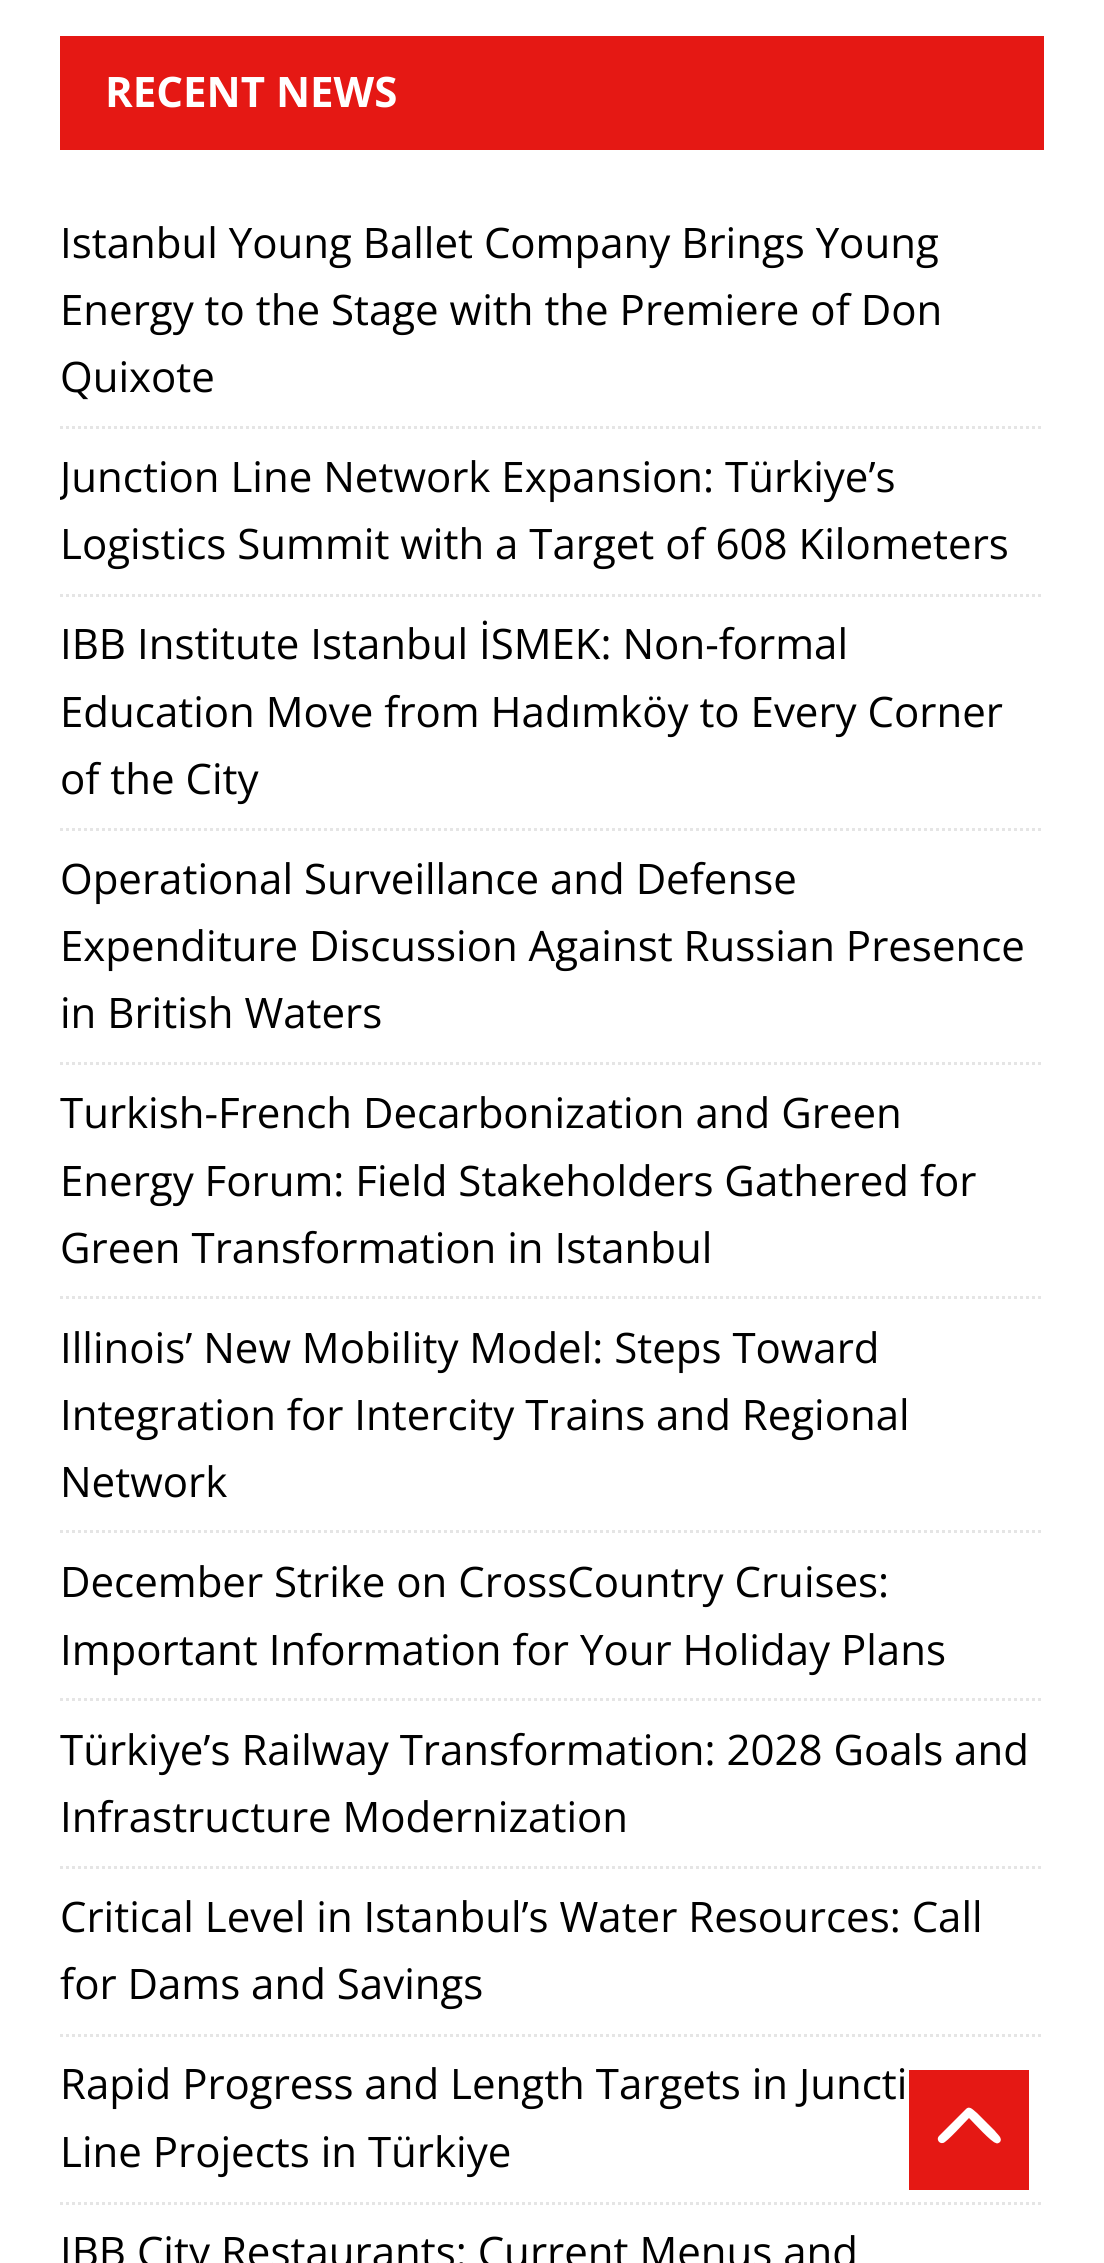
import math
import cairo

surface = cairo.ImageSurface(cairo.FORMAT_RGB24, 1104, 2263)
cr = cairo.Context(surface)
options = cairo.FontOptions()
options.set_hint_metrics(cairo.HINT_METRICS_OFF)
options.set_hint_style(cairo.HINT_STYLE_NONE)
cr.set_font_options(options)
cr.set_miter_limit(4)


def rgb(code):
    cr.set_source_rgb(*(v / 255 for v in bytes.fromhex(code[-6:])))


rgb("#ffffff")
cr.paint()
rgb("#e51814")
cr.rectangle(60, 36, 984, 114)
cr.fill()
cr.new_path()
cr.move_to(60, 427.5)
cr.line_to(1044, 427.5)
rgb("#e5e5e5")
cr.set_line_width(3)
cr.set_dash([3, 3])
cr.stroke()
cr.new_path()
cr.move_to(60, 595.5)
cr.line_to(1044, 595.5)
cr.stroke()
cr.new_path()
cr.move_to(60, 829.5)
cr.line_to(1044, 829.5)
cr.stroke()
cr.new_path()
cr.move_to(60, 1063.5)
cr.line_to(1044, 1063.5)
cr.stroke()
cr.new_path()
cr.move_to(60, 1297.5)
cr.line_to(1044, 1297.5)
cr.stroke()
cr.new_path()
cr.move_to(60, 1531.5)
cr.line_to(1044, 1531.5)
cr.stroke()
cr.new_path()
cr.move_to(60, 1699.5)
cr.line_to(1044, 1699.5)
cr.stroke()
cr.new_path()
cr.move_to(60, 1867.5)
cr.line_to(1044, 1867.5)
cr.stroke()
cr.new_path()
cr.move_to(60, 2035.5)
cr.line_to(1044, 2035.5)
cr.stroke()
cr.new_path()
cr.move_to(60, 2203.5)
cr.line_to(1044, 2203.5)
cr.stroke()
rgb("#e51814")
cr.rectangle(909, 2070, 120, 120)
cr.fill()
rgb("#ffffff")
cr.new_path()
cr.move_to(966, 2109)
cr.curve_to(970, 2105, 974, 2111, 977, 2113)
cr.line_to(995, 2131)
cr.curve_to(997, 2134, 1003, 2138, 1000, 2142)
cr.curve_to(999, 2143, 997, 2144, 996, 2143)
cr.curve_to(992, 2143, 973, 2122, 969, 2118)
cr.curve_to(965, 2122, 946, 2143, 943, 2143)
cr.curve_to(939, 2144, 936, 2139, 939, 2136)
cr.close_path()
cr.fill()
cr.select_font_face("Open Sans", cairo.FONT_SLANT_NORMAL, cairo.FONT_WEIGHT_BOLD)
cr.set_font_size(42)
cr.move_to(105, 107)
cr.show_text("RECENT NEWS")
cr.select_font_face("Open Sans")
rgb("#000000")
for x, y, s in [
    (60, 258, "Istanbul Young Ballet Company Brings Young"),
    (60, 325, "Energy to the Stage with the Premiere of Don"),
    (60, 392, "Quixote"),
]:
    cr.move_to(x, y)
    cr.show_text(s)
cr.save()
cr.rectangle(60, 36, 984, 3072)
cr.clip()
cr.move_to(60, 492)
cr.show_text("Junction Line Network Expansion: Türkiye’s")
cr.restore()
for x, y, s in [
    (60, 559, "Logistics Summit with a Target of 608 Kilometers"),
    (60, 659, "IBB Institute Istanbul İSMEK: Non-formal"),
    (60, 727, "Education Move from Hadımköy to Every Corner"),
    (60, 794, "of the City"),
    (60, 894, "Operational Surveillance and Defense"),
    (60, 961, "Expenditure Discussion Against Russian Presence"),
    (60, 1028, "in British Waters"),
    (60, 1128, "Turkish-French Decarbonization and Green"),
    (60, 1196, "Energy Forum: Field Stakeholders Gathered for"),
    (60, 1263, "Green Transformation in Istanbul"),
    (60, 1363, "Illinois’ New Mobility Model: Steps Toward"),
    (60, 1430, "Integration for Intercity Trains and Regional"),
    (60, 1497, "Network"),
    (60, 1597, "December Strike on CrossCountry Cruises:"),
    (60, 1665, "Important Information for Your Holiday Plans"),
    (60, 1765, "Türkiye’s Railway Transformation: 2028 Goals and"),
    (60, 1832, "Infrastructure Modernization"),
    (60, 1932, "Critical Level in Istanbul’s Water Resources: Call"),
    (60, 1999, "for Dams and Savings"),
    (60, 2099, "Rapid Progress and Length Targets in Juncti"),
    (60, 2167, "Line Projects in Türkiye"),
    (60, 2267, "IBB City Restaurants: Current Menus and"),
]:
    cr.move_to(x, y)
    cr.show_text(s)
surface.write_to_png("page.png")
